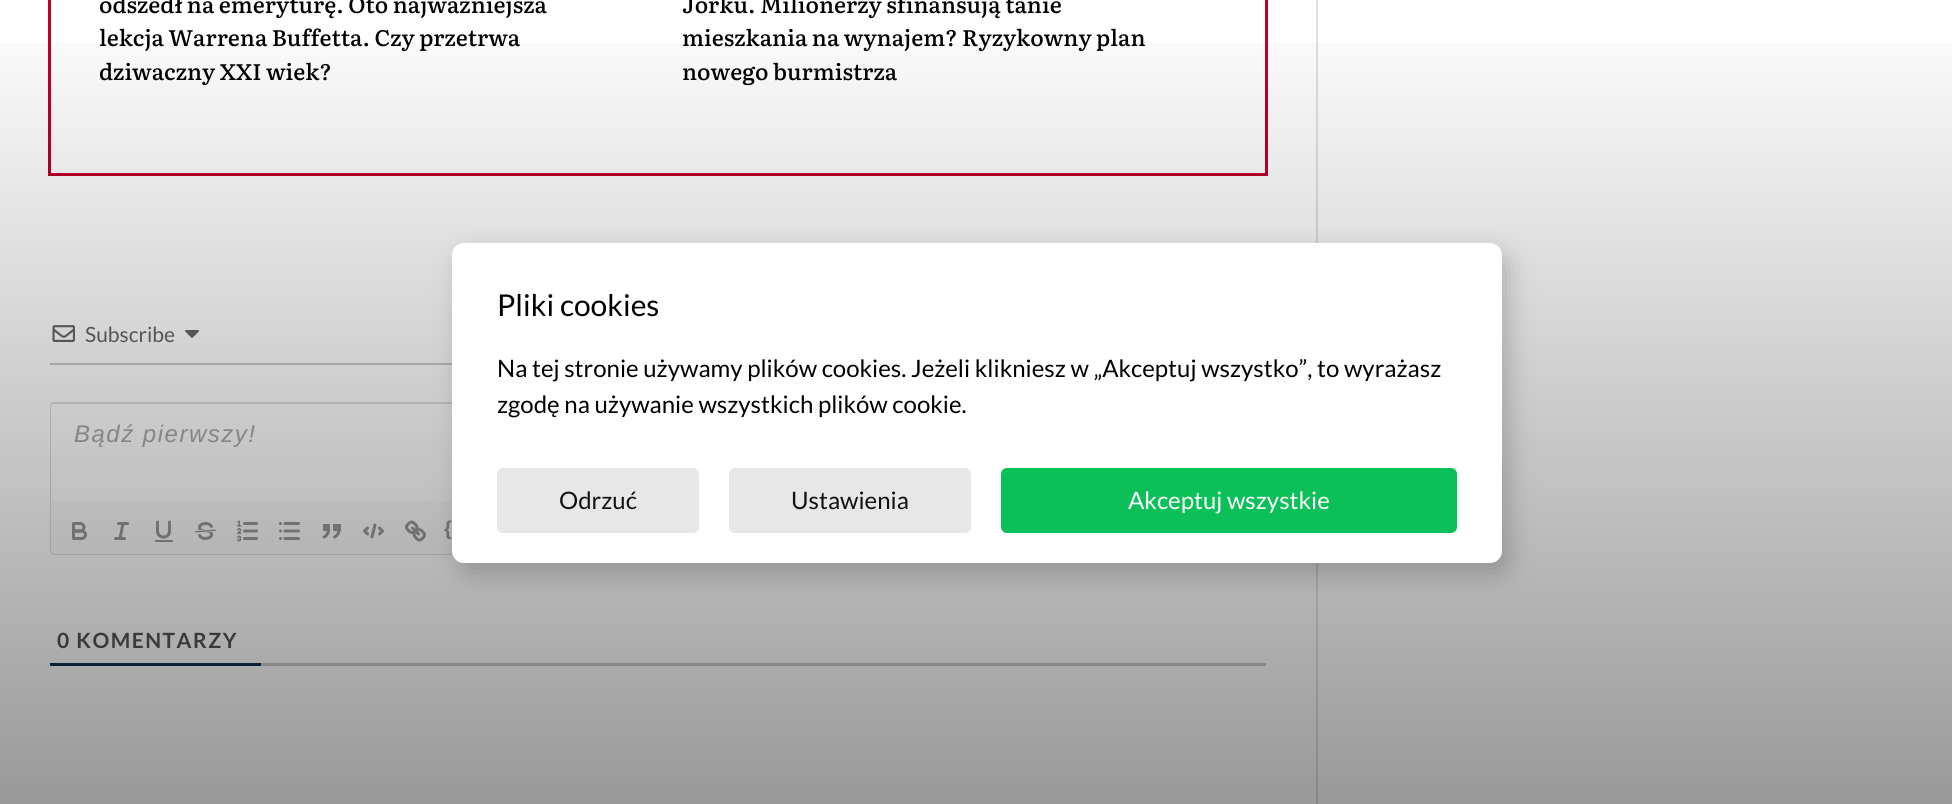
import math
import cairo

surface = cairo.ImageSurface(cairo.FORMAT_RGB24, 1952, 804)
cr = cairo.Context(surface)
options = cairo.FontOptions()
options.set_hint_metrics(cairo.HINT_METRICS_OFF)
options.set_hint_style(cairo.HINT_STYLE_NONE)
cr.set_font_options(options)
cr.set_miter_limit(4)


def rgb(code):
    cr.set_source_rgb(*(v / 255 for v in bytes.fromhex(code[-6:])))


def tracked(x, y, s, letter, word):
    cr.move_to(x, y)
    for ch in s:
        cr.show_text(ch)
        cr.rel_move_to(letter + word * (ch == ' '), 0)


def rrect(x, y, w, h, r):
    cr.new_sub_path()
    for i, (u, v) in enumerate([(x + w - r, y + h - r), (x + r, y + h - r), (x + r, y + r), (x + w - r, y + r)]):
        cr.arc(u, v, r, i * math.pi / 2, (i + 1) * math.pi / 2)
    cr.close_path()


def soft_shadow(x, y, w, h, r, blur, alpha):
    cr.push_group_with_content(cairo.CONTENT_ALPHA)
    cr.set_operator(cairo.OPERATOR_SOURCE)
    for i in range(15, -16, -2):
        e = blur * i / 6
        if min(w, h) + 2 * e > 0:
            cr.set_source_rgba(0, 0, 0, alpha * math.erfc((i - 1) / 8.5) / 2)
            rrect(x - e, y - e, w + 2 * e, h + 2 * e, max(0, min(r + e + blur * .6, min(w, h) / 2 + e)))
            cr.fill()
    cr.mask(cr.pop_group())


def image(path, x, y, w, h):
    cr.save()
    cr.set_source_surface(cairo.ImageSurface.create_from_png(path), x, y)
    cr.rectangle(x, y, w, h)
    cr.fill()
    cr.restore()


rgb("#ffffff")
cr.paint()
rgb("#e1e1e1")
cr.rectangle(1316, 0, 2, 804)
cr.fill()
cr.rectangle(49.5, -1.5, 1217, 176)
rgb("#be0027")
cr.set_line_width(3)
cr.stroke()
rgb("#cccccc")
cr.rectangle(50, 363, 402, 2)
cr.fill()
image("img/1.png", 52, 325, 23, 17)
image("img/2.png", 185, 330, 14, 8)
rgb("#dddddd")
cr.set_fill_rule(cairo.FILL_RULE_EVEN_ODD)
cr.new_path()
cr.move_to(54, 402)
cr.line_to(1262, 402)
cr.curve_to(1264, 402, 1266, 404, 1266, 406)
cr.line_to(1266, 501)
cr.line_to(50, 501)
cr.line_to(50, 406)
cr.curve_to(50, 404, 52, 402, 54, 402)
cr.close_path()
cr.move_to(54, 404)
cr.line_to(1262, 404)
cr.curve_to(1263, 404, 1264, 405, 1264, 406)
cr.line_to(1264, 501)
cr.line_to(51, 501)
cr.line_to(51, 406)
cr.curve_to(51, 405, 52, 404, 54, 404)
cr.close_path()
cr.fill()
rgb("#fafafa")
cr.new_path()
cr.move_to(50, 501)
cr.line_to(1266, 501)
cr.line_to(1266, 550)
cr.curve_to(1266, 553, 1264, 555, 1261, 555)
cr.line_to(55, 555)
cr.curve_to(52, 555, 50, 553, 50, 550)
cr.close_path()
cr.fill()
rgb("#dddddd")
cr.new_path()
cr.move_to(50, 501)
cr.line_to(1266, 501)
cr.line_to(1266, 550)
cr.curve_to(1266, 553, 1264, 555, 1262, 555)
cr.line_to(54, 555)
cr.curve_to(52, 555, 50, 553, 50, 550)
cr.close_path()
cr.move_to(51, 501)
cr.line_to(1264, 501)
cr.line_to(1264, 550)
cr.curve_to(1264, 552, 1263, 554, 1262, 554)
cr.line_to(54, 554)
cr.curve_to(52, 554, 51, 552, 51, 550)
cr.close_path()
cr.fill()
image("img/3.png", 72, 522, 15, 18)
cr.new_path()
cr.move_to(118.5, 523.5)
cr.line_to(127.5, 523.5)
cr.move_to(115.5, 538.5)
cr.line_to(124.5, 538.5)
cr.move_to(120, 538.5)
cr.line_to(123, 523.5)
cr.move_to(157.5, 522)
cr.line_to(157.5, 531)
cr.curve_to(157.5, 534.5, 160, 537, 163.5, 537)
cr.curve_to(167, 537, 169.5, 534.5, 169.5, 531)
cr.line_to(169.5, 522)
rgb("#999999")
cr.set_line_cap(cairo.LINE_CAP_ROUND)
cr.set_line_join(cairo.LINE_JOIN_ROUND)
cr.stroke()
image("img/4.png", 195, 522, 21, 18)
image("img/5.png", 237, 520, 21, 22)
image("img/6.png", 279, 522, 21, 18)
image("img/7.png", 322, 524, 19, 15)
cr.new_path()
cr.move_to(367.5, 528)
cr.line_to(364.5, 531)
cr.line_to(367.5, 534)
cr.move_to(379.5, 528)
cr.line_to(382.5, 531)
cr.line_to(379.5, 534)
cr.move_to(375, 525)
cr.line_to(372, 537)
cr.stroke()
image("img/8.png", 405, 520, 21, 22)
rrect(155, 540, 18, 2, 1)
cr.fill()
rgb("#cccccc")
cr.rectangle(261, 663, 1005, 3)
cr.fill()
rgb("#0f3057")
cr.rectangle(50, 663, 211, 3)
cr.fill()
cr.select_font_face("Literata Medium")
cr.set_font_size(22.5)
rgb("#000000")
for x, y, s in [
    (99, 13, "odszedł na emeryturę. Oto najważniejsza"),
    (99, 46, "lekcja Warrena Buffetta. Czy przetrwa"),
    (99, 80, "dziwaczny XXI wiek?"),
    (682, 13, "Jorku. Milionerzy sfinansują tanie"),
    (682, 46, "mieszkania na wynajem? Ryzykowny plan"),
    (682, 80, "nowego burmistrza"),
]:
    cr.move_to(x, y)
    cr.show_text(s)
cr.select_font_face("Lato")
cr.set_font_size(21)
rgb("#666666")
cr.move_to(85, 342)
cr.show_text("Subscribe")
cr.select_font_face("Liberation Sans", cairo.FONT_SLANT_ITALIC)
cr.set_font_size(24)
rgb("#aaaaaa")
tracked(74, 442, "Bądź pierwszy!", 1.5, 0)
cr.select_font_face("Liberation Sans", cairo.FONT_SLANT_NORMAL, cairo.FONT_WEIGHT_BOLD)
cr.set_font_size(20)
rgb("#999999")
tracked(444, 535, "{", 3, 0)
cr.select_font_face("Lato", cairo.FONT_SLANT_NORMAL, cairo.FONT_WEIGHT_BOLD)
cr.set_font_size(21)
rgb("#555555")
tracked(57, 648, "0 KOMENTARZY", 1.5, 0)
gradient = cairo.LinearGradient(977, 804, 977, 0)
gradient.add_color_stop_rgba(0, 0, 0, 0, 0.4)
gradient.add_color_stop_rgba(1, 0, 0, 0, 0)
cr.set_source(gradient)
cr.rectangle(0, 43, 1952, 761)
cr.fill()
rgb("#000000")
soft_shadow(459, 254, 1050, 319, 12, 13, 0.2)
rgb("#ffffff")
rrect(452, 243, 1050, 320, 12)
cr.fill()
cr.select_font_face("Lato")
cr.set_font_size(30)
rgb("#000000")
cr.move_to(497, 316)
cr.show_text("Pliki cookies")
cr.set_font_size(24)
cr.move_to(497, 377)
cr.show_text("Na tej stronie używamy plików cookies. Jeżeli klikniesz w „Akceptuj wszystko”, to wyrażasz")
cr.move_to(497, 413)
cr.show_text("zgodę na używanie wszystkich plików cookie.")
rgb("#e7e7e7")
rrect(497, 468, 202, 65, 6)
cr.fill()
rgb("#111111")
cr.move_to(559, 509)
cr.show_text("Odrzuć")
rgb("#e7e7e7")
rrect(729, 468, 242, 65, 6)
cr.fill()
rgb("#111111")
cr.move_to(791, 509)
cr.show_text("Ustawienia")
rgb("#0bbf59")
rrect(1001, 468, 456, 65, 6)
cr.fill()
rgb("#ffffff")
cr.move_to(1128, 509)
cr.show_text("Akceptuj wszystkie")
surface.write_to_png("page.png")
